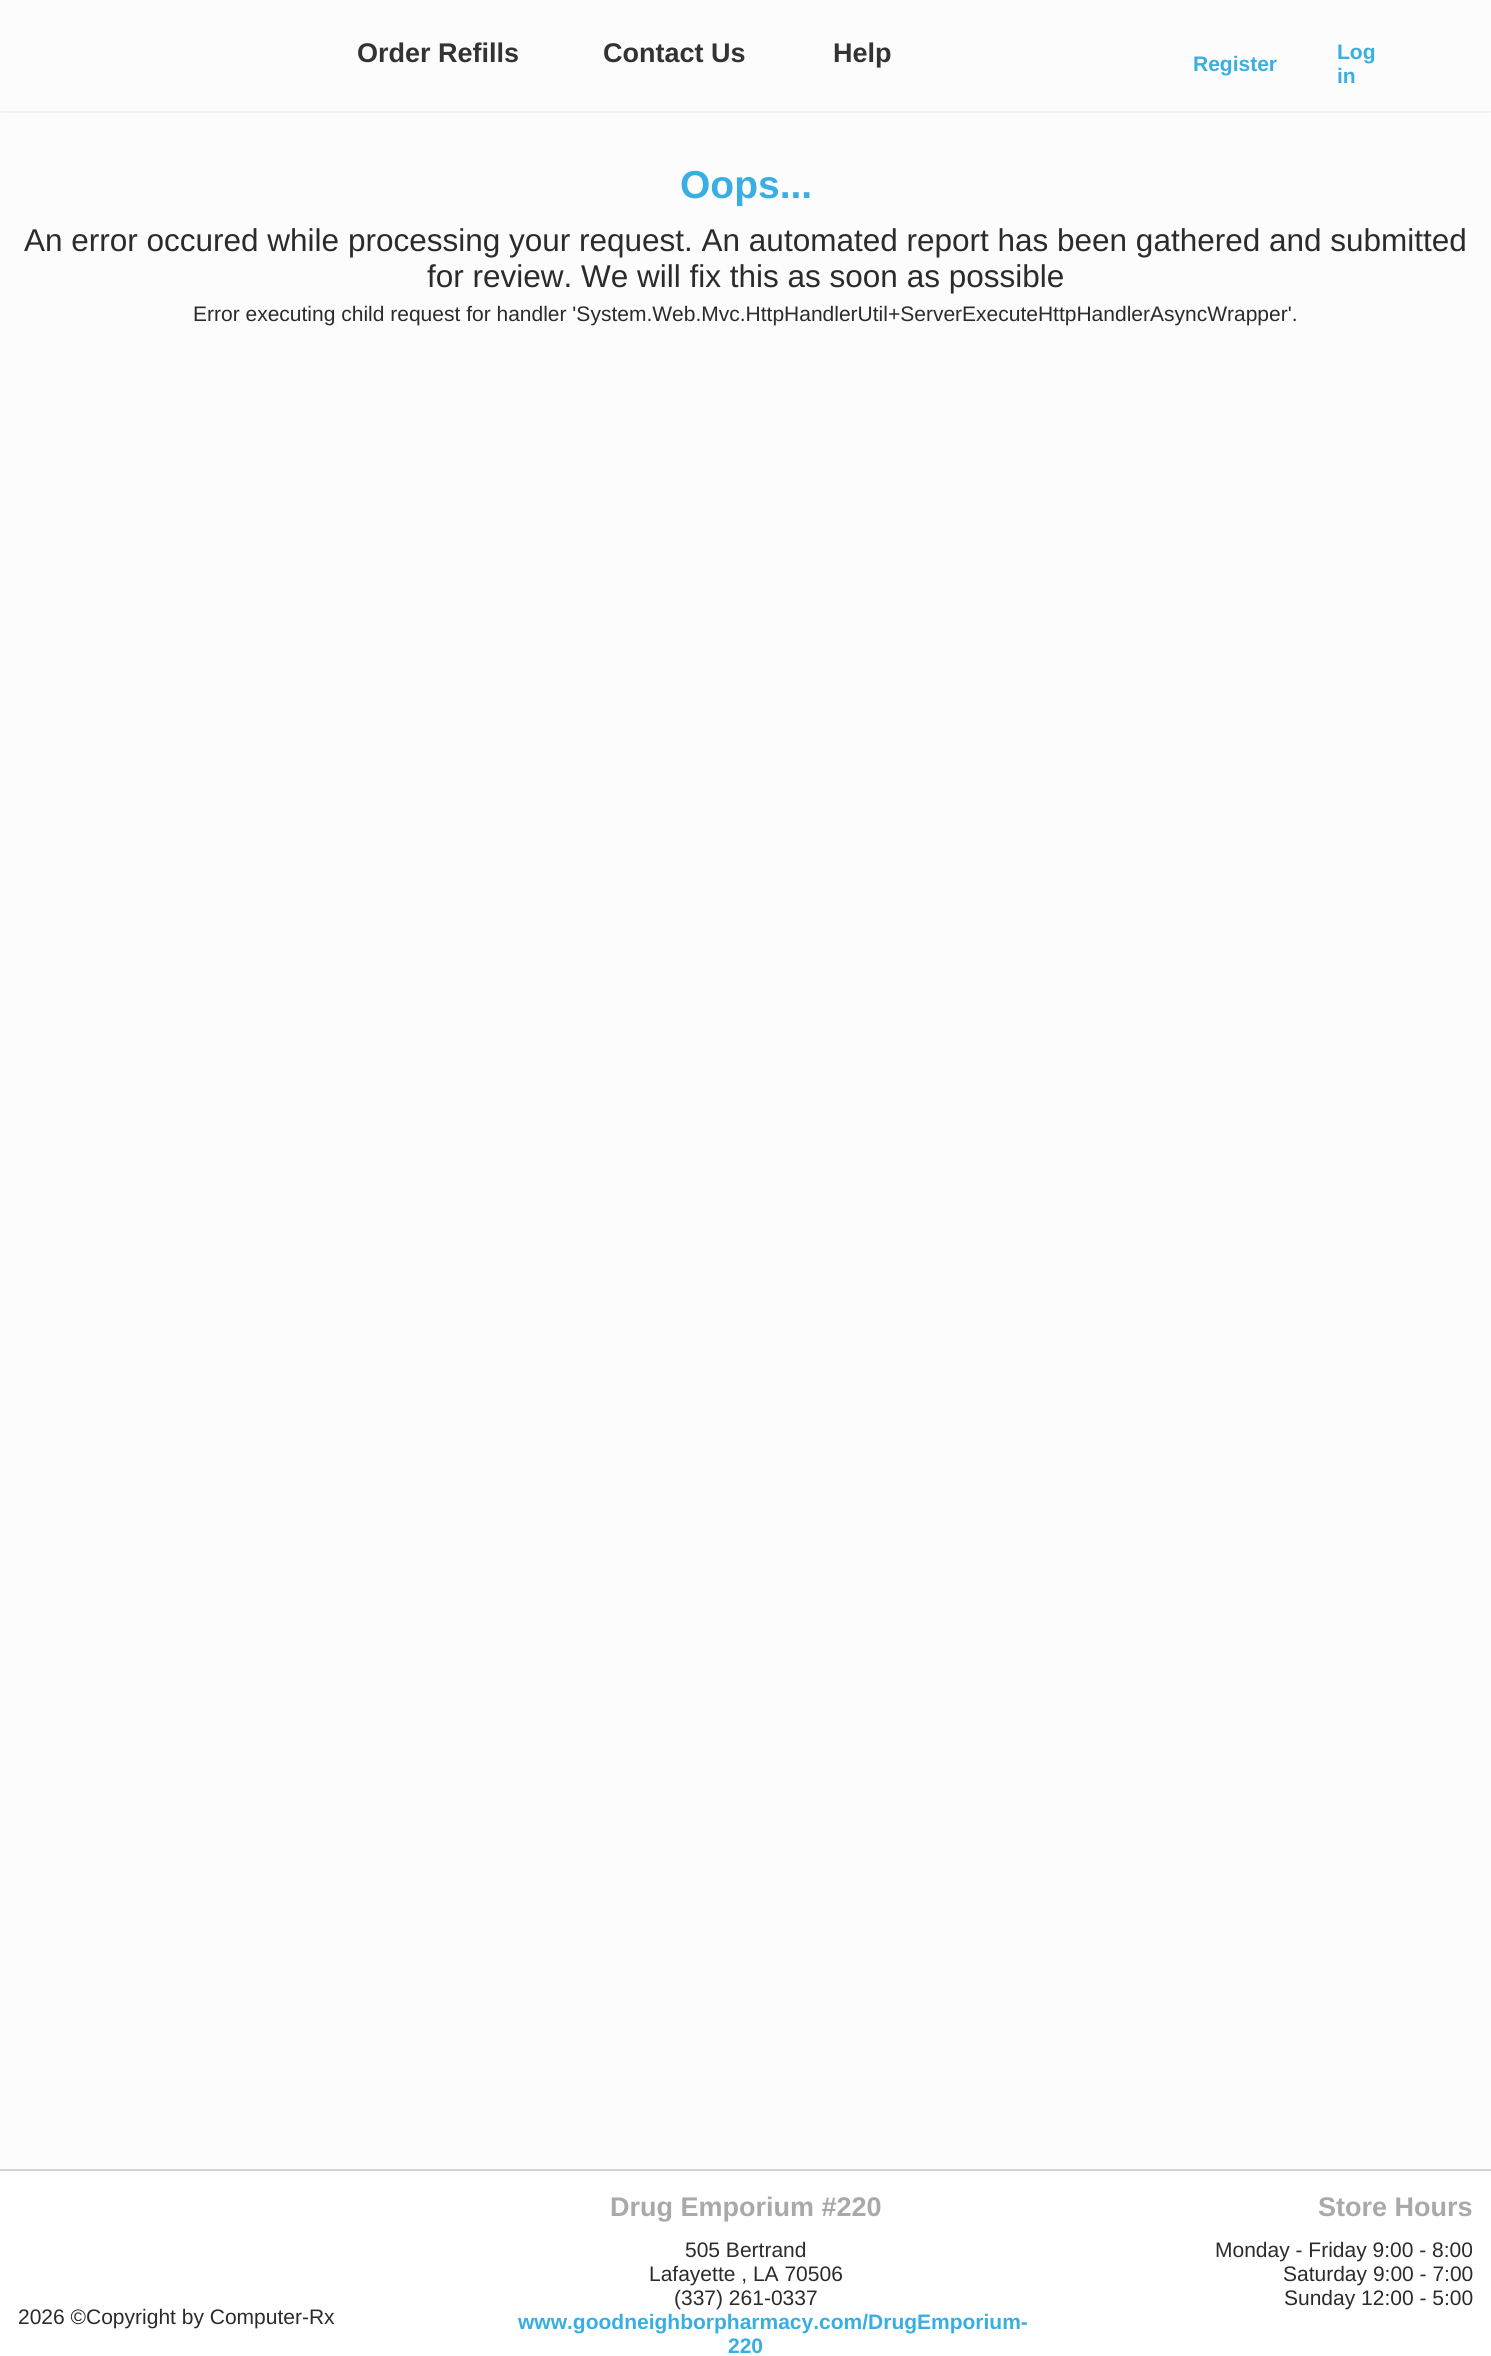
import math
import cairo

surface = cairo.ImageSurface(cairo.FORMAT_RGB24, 1491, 2356)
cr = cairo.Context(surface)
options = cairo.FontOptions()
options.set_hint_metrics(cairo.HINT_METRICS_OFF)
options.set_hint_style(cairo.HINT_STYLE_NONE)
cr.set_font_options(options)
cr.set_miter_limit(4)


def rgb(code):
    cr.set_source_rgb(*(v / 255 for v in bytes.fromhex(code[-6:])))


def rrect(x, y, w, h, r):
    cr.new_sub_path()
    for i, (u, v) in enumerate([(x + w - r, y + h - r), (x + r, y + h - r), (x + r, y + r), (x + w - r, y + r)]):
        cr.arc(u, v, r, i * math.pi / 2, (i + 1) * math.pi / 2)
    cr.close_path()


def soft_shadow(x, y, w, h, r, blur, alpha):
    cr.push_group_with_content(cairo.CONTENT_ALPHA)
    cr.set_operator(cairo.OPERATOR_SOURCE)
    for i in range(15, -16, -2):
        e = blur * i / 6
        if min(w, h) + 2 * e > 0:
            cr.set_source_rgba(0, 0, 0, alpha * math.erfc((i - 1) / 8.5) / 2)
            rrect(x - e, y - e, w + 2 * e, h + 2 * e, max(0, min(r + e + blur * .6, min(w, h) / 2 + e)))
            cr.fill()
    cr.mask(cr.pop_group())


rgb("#fcfcfc")
cr.paint()
cr.save()
cr.rectangle(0, 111, 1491, 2)
cr.clip()
rgb("#000000")
soft_shadow(0, 2, 1491, 111, 0, 1, 0.05)
cr.restore()
rgb("#ffffff")
cr.rectangle(0, 2171, 1491, 185)
cr.fill()
rgb("#d1d1d1")
cr.rectangle(0, 2169, 1491, 2)
cr.fill()
cr.select_font_face("Liberation Sans", cairo.FONT_SLANT_NORMAL, cairo.FONT_WEIGHT_BOLD)
cr.set_font_size(27)
rgb("#333333")
for x, y, s in [
    (357, 62, "Order Refills"),
    (603, 62, "Contact Us"),
    (833, 62, "Help"),
]:
    cr.move_to(x, y)
    cr.show_text(s)
cr.set_font_size(21)
rgb("#39aee2")
for x, y, s in [
    (1193, 71, "Register"),
    (1337, 59, "Log"),
    (1337, 83, "in"),
]:
    cr.move_to(x, y)
    cr.show_text(s)
cr.set_font_size(39)
cr.move_to(680, 198)
cr.show_text("Oops...")
cr.select_font_face("Liberation Sans")
cr.set_font_size(31.5)
rgb("#2b2b2b")
cr.move_to(24, 251)
cr.show_text("An error occured while processing your request. An automated report has been gathered and submitted")
cr.move_to(427, 287)
cr.show_text("for review. We will fix this as soon as possible")
cr.set_font_size(21)
cr.move_to(193, 321)
cr.show_text("Error executing child request for handler 'System.Web.Mvc.HttpHandlerUtil+ServerExecuteHttpHandlerAsyncWrapper'.")
cr.select_font_face("Liberation Sans", cairo.FONT_SLANT_NORMAL, cairo.FONT_WEIGHT_BOLD)
cr.set_font_size(27)
rgb("#a9a9a9")
cr.move_to(610, 2216)
cr.show_text("Drug Emporium #220")
cr.select_font_face("Liberation Sans")
cr.set_font_size(21)
rgb("#2b2b2b")
for x, y, s in [
    (685, 2257, "505 Bertrand"),
    (649, 2281, "Lafayette , LA 70506"),
    (674, 2305, "(337) 261-0337"),
]:
    cr.move_to(x, y)
    cr.show_text(s)
cr.select_font_face("Liberation Sans", cairo.FONT_SLANT_NORMAL, cairo.FONT_WEIGHT_BOLD)
rgb("#39aee2")
cr.move_to(518, 2329)
cr.show_text("www.goodneighborpharmacy.com/DrugEmporium-")
cr.move_to(728, 2353)
cr.show_text("220")
cr.set_font_size(27)
rgb("#a9a9a9")
cr.move_to(1318, 2216)
cr.show_text("Store Hours")
cr.select_font_face("Liberation Sans")
cr.set_font_size(21)
rgb("#2b2b2b")
for x, y, s in [
    (1215, 2257, "Monday - Friday 9:00 - 8:00"),
    (1283, 2281, "Saturday 9:00 - 7:00"),
    (1284, 2305, "Sunday 12:00 - 5:00"),
    (18, 2324, "2026 ©Copyright by Computer-Rx"),
]:
    cr.move_to(x, y)
    cr.show_text(s)
surface.write_to_png("page.png")
